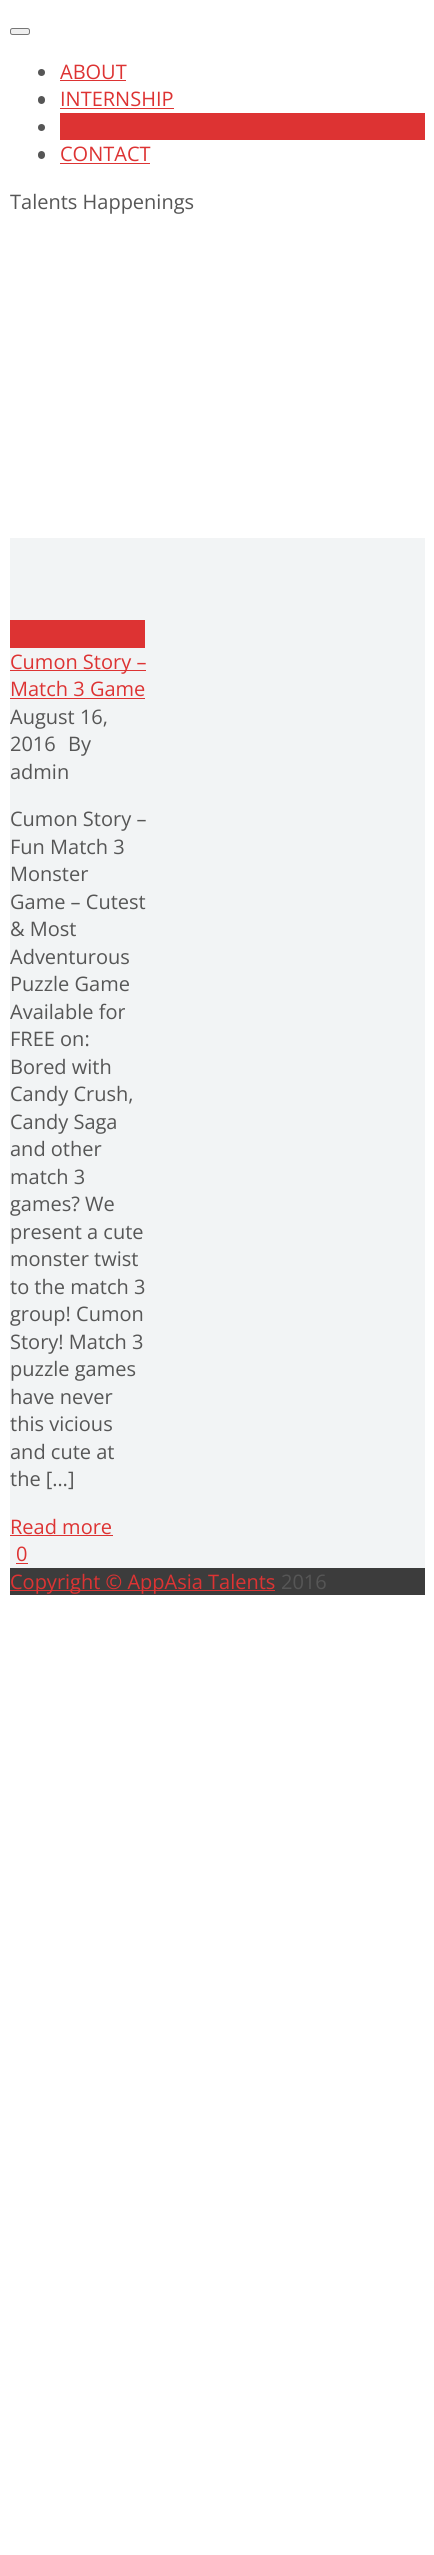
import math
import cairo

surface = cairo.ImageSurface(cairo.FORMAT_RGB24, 434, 2555)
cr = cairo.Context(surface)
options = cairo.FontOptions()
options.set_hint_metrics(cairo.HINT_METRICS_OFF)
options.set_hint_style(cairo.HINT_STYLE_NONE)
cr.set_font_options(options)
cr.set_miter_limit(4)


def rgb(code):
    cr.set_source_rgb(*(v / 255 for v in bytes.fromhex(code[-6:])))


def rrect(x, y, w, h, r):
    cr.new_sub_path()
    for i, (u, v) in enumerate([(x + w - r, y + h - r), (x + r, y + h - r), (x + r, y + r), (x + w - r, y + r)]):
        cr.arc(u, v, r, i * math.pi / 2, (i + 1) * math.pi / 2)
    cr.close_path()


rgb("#ffffff")
cr.paint()
rgb("#efefef")
rrect(10.5, 28.5, 19, 6, 2)
cr.fill_preserve()
rgb("#767676")
cr.set_line_width(1)
cr.stroke()
rgb("#565656")
cr.arc(41.5, 72.5, 3.5, 0, 2 * math.pi)
cr.fill()
rgb("#dd3333")
cr.rectangle(60, 80, 66, 1)
cr.fill()
rgb("#565656")
rrect(38, 96, 7, 8, 3.5)
cr.fill()
rgb("#dd3333")
cr.rectangle(60, 108, 114, 1)
cr.fill()
cr.rectangle(60, 113, 365, 27)
cr.fill()
rgb("#565656")
cr.arc(41.5, 127.5, 3.5, 0, 2 * math.pi)
cr.fill()
rrect(38, 151, 7, 8, 3.5)
cr.fill()
for x, y, w, h, color in [
    (60, 163, 90, 1, "#dd3333"),
    (10, 538, 415, 1030, "#f2f4f5"),
    (10, 620, 135, 28, "#dd3333"),
    (10, 670, 136, 1, "#dd3333"),
    (10, 698, 135, 1, "#dd3333"),
    (10, 1535, 103, 1, "#dd3333"),
    (16, 1563, 12, 1, "#dd3333"),
    (10, 1568, 415, 27, "#3c3c3c"),
    (10, 1590, 265, 1, "#dd3333"),
]:
    rgb(color)
    cr.rectangle(x, y, w, h)
    cr.fill()
cr.select_font_face("Open Sans")
cr.set_font_size(20)
for x, y, s in [
    (60, 79, "ABOUT"),
    (60, 106, "INTERNSHIP"),
    (60, 161, "CONTACT"),
]:
    cr.move_to(x, y)
    cr.show_text(s)
rgb("#565656")
cr.move_to(10, 209)
cr.show_text("Talents Happenings")
rgb("#dd3333")
cr.move_to(10, 669)
cr.show_text("Cumon Story –")
cr.move_to(10, 696)
cr.show_text("Match 3 Game")
rgb("#565656")
for x, y, s in [
    (10, 724, "August 16,"),
    (10, 751, "2016"),
    (68, 751, "By"),
    (10, 779, "admin"),
    (10, 826, "Cumon Story –"),
    (10, 854, "Fun Match 3"),
    (10, 881, "Monster"),
    (10, 909, "Game – Cutest"),
    (10, 936, "& Most"),
    (10, 964, "Adventurous"),
    (10, 991, "Puzzle Game"),
    (10, 1019, "Available for"),
    (10, 1046, "FREE on:"),
    (10, 1074, "Bored with"),
    (10, 1101, "Candy Crush,"),
    (10, 1129, "Candy Saga"),
    (10, 1156, "and other"),
    (10, 1184, "match 3"),
    (10, 1211, "games? We"),
    (10, 1239, "present a cute"),
    (10, 1266, "monster twist"),
    (10, 1294, "to the match 3"),
    (10, 1321, "group! Cumon"),
    (10, 1349, "Story! Match 3"),
    (10, 1376, "puzzle games"),
    (10, 1404, "have never"),
    (10, 1431, "this vicious"),
    (10, 1459, "and cute at"),
    (10, 1486, "the […]"),
]:
    cr.move_to(x, y)
    cr.show_text(s)
rgb("#dd3333")
for x, y, s in [
    (10, 1534, "Read more"),
    (16, 1561, "0"),
    (10, 1589, "Copyright © AppAsia Talents"),
]:
    cr.move_to(x, y)
    cr.show_text(s)
rgb("#565656")
cr.move_to(281, 1589)
cr.show_text("2016")
surface.write_to_png("page.png")
